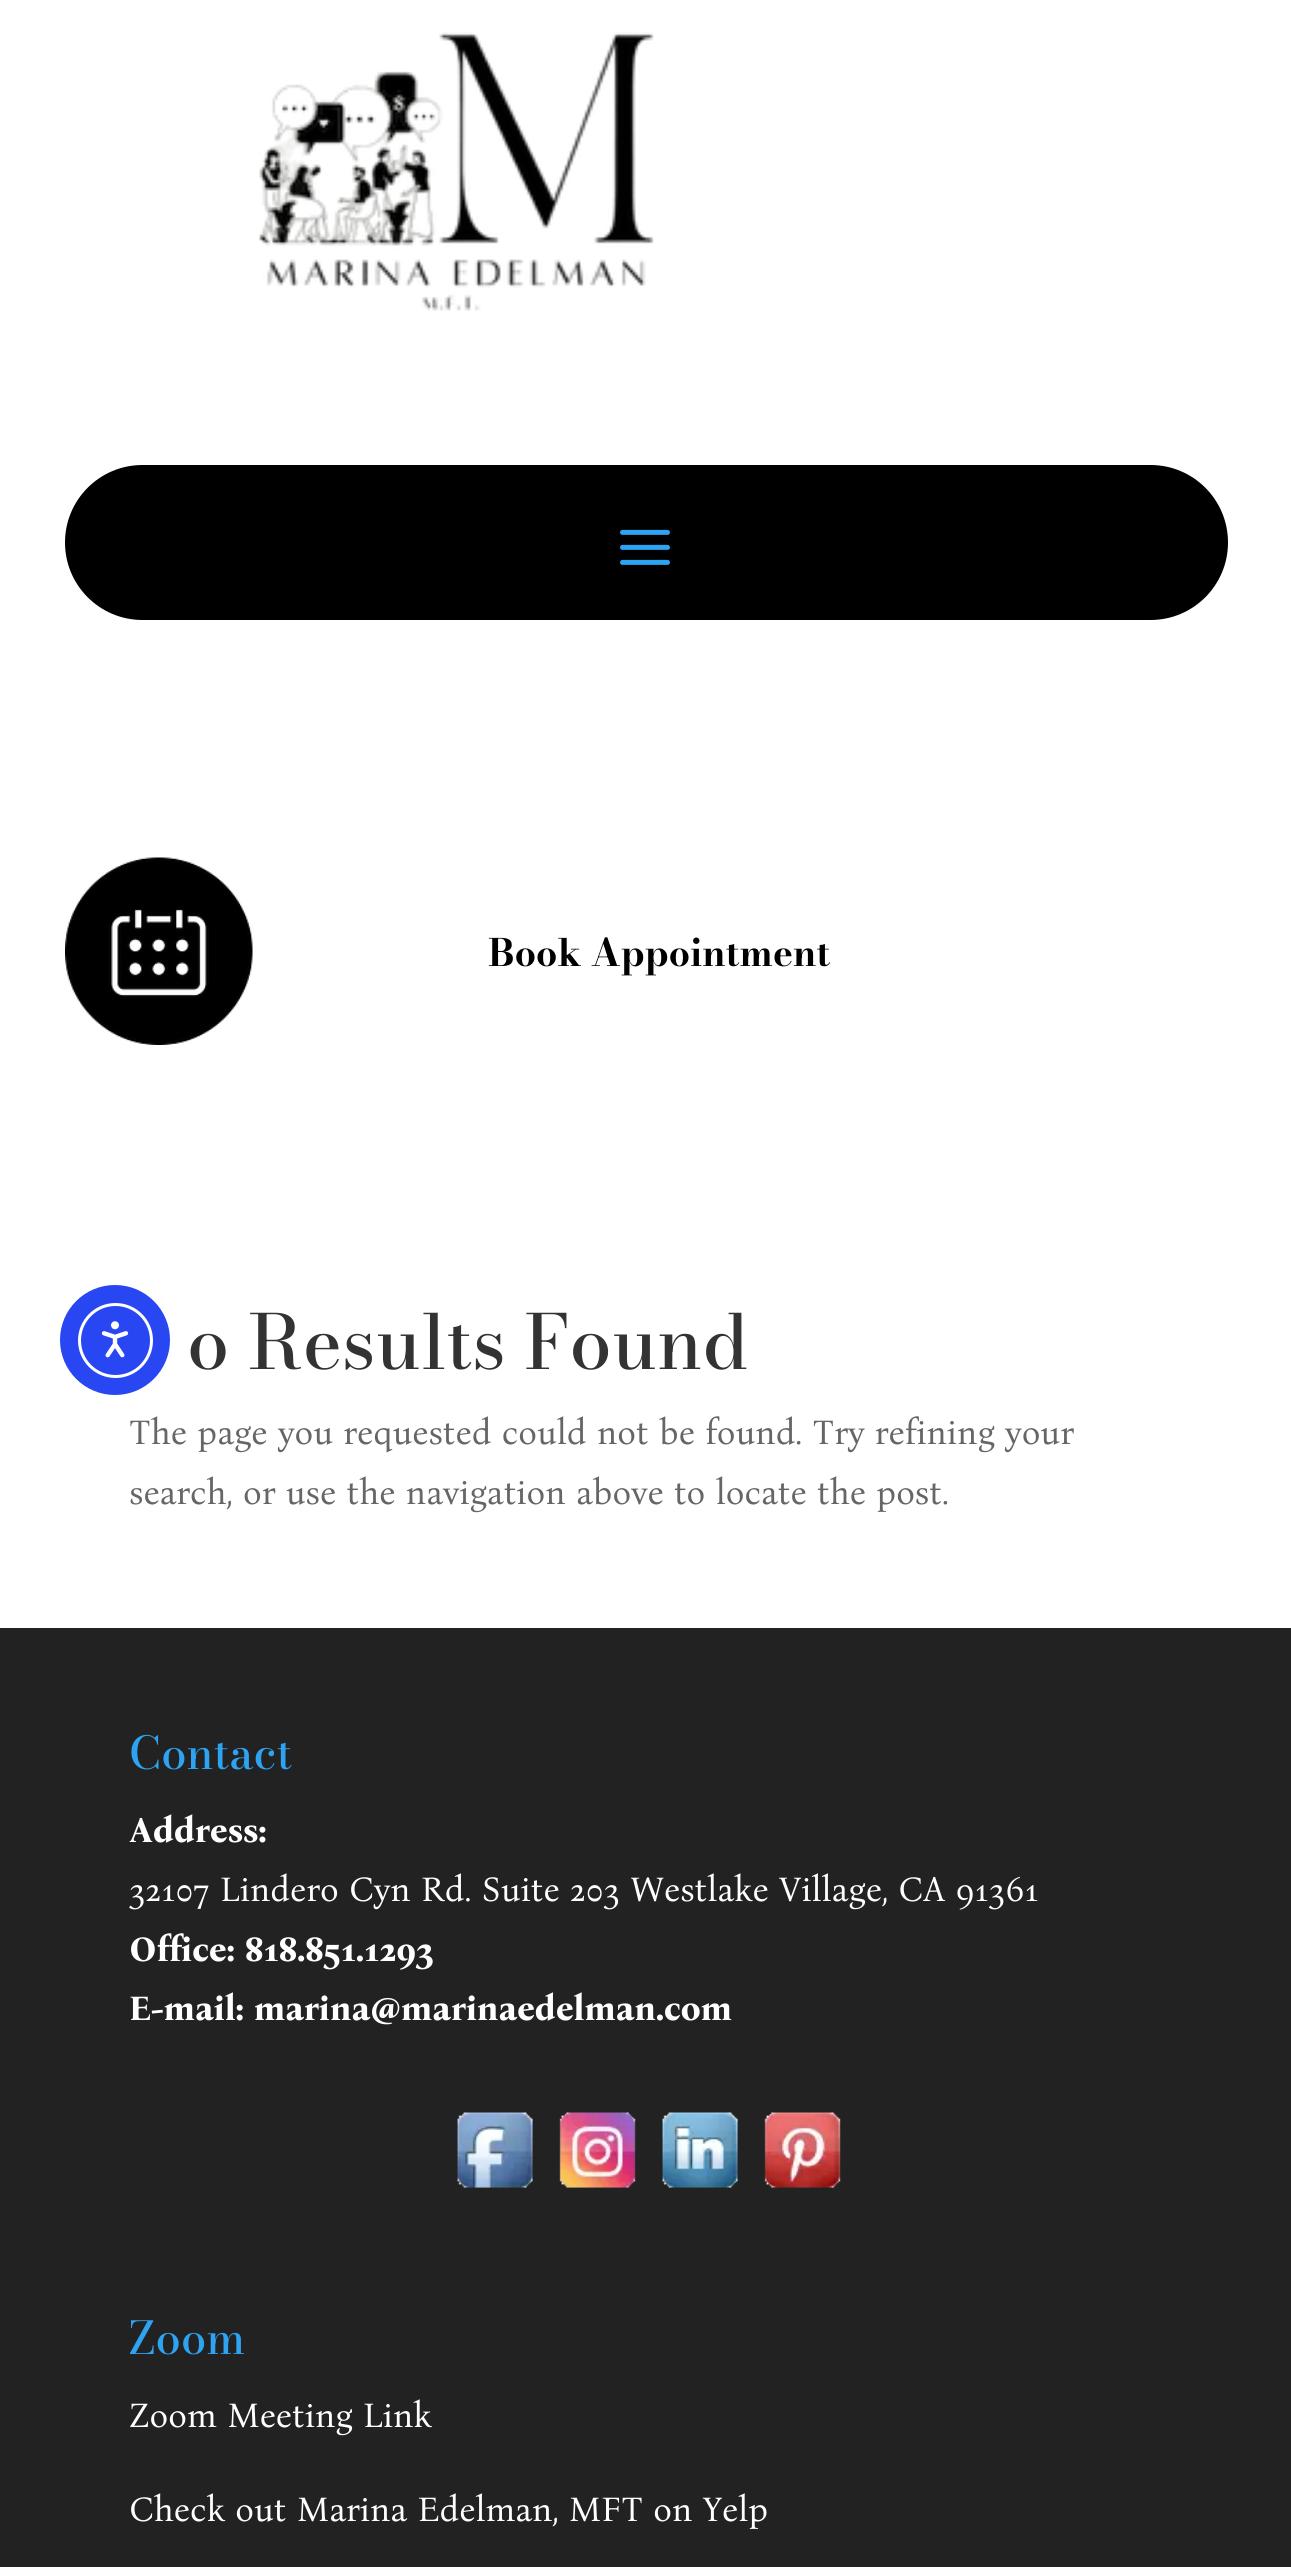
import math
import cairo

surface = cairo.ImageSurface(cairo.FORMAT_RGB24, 1291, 2567)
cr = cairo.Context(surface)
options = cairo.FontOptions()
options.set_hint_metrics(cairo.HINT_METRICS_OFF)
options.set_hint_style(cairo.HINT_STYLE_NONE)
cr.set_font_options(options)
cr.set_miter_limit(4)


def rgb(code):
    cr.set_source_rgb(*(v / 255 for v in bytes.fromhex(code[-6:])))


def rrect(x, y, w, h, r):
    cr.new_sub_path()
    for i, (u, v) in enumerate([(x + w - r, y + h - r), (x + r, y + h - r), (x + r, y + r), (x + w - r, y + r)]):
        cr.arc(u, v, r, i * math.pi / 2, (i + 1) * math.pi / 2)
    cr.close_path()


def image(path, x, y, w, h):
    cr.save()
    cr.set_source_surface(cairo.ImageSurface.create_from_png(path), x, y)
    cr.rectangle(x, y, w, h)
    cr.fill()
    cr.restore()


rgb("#ffffff")
cr.paint()
rgb("#2847f3")
cr.arc(115, 1340, 55, 0, 2 * math.pi)
cr.fill()
cr.arc(115.5, 1340.5, 36, 0, 2 * math.pi)
rgb("#ffffff")
cr.set_line_width(3)
cr.stroke()
image("img/1.png", 101, 1321, 28, 37)
image("img/2.png", 259, 32, 395, 279)
rgb("#000000")
rrect(65, 465, 1163, 155, 77.5)
cr.fill()
image("img/3.png", 620, 529, 50, 36)
image("img/4.png", 65, 857, 188, 188)
rgb("#222222")
cr.rectangle(0, 1628, 1291, 939)
cr.fill()
image("img/5.png", 457, 2112, 76, 76)
image("img/6.png", 559, 2112, 77, 76)
image("img/7.png", 662, 2112, 76, 76)
image("img/8.png", 764, 2112, 77, 76)
cr.select_font_face("Bodoni Moda", cairo.FONT_SLANT_NORMAL, cairo.FONT_WEIGHT_BOLD)
cr.set_font_size(37.5)
rgb("#000000")
cr.move_to(488, 966)
cr.show_text("Book Appointment")
cr.select_font_face("Bodoni Moda Medium")
cr.set_font_size(75)
rgb("#333333")
cr.move_to(187, 1369)
cr.show_text("o Results Found")
cr.select_font_face("Bona Nova")
cr.set_font_size(35)
rgb("#666666")
cr.move_to(129, 1444)
cr.show_text("The page you requested could not be found. Try refining your")
cr.move_to(129, 1504)
cr.show_text("search, or use the navigation above to locate the post.")
cr.select_font_face("Bodoni Moda Medium")
cr.set_font_size(45)
rgb("#2ea3f2")
cr.move_to(129, 1769)
cr.show_text("Contact")
cr.select_font_face("Bona Nova", cairo.FONT_SLANT_NORMAL, cairo.FONT_WEIGHT_BOLD)
cr.set_font_size(35)
rgb("#ffffff")
cr.move_to(129, 1842)
cr.show_text("Address:")
cr.select_font_face("Bona Nova")
cr.move_to(129, 1901)
cr.show_text("32107 Lindero Cyn Rd. Suite 203 Westlake Village, CA 91361")
cr.select_font_face("Bona Nova", cairo.FONT_SLANT_NORMAL, cairo.FONT_WEIGHT_BOLD)
for x, y, s in [
    (129, 1961, "Office:"),
    (245, 1961, "818.851.1293"),
    (129, 2020, "E-mail:"),
    (254, 2020, "marina@marinaedelman.com"),
]:
    cr.move_to(x, y)
    cr.show_text(s)
cr.select_font_face("Bodoni Moda Medium")
cr.set_font_size(45)
rgb("#2ea3f2")
cr.move_to(129, 2354)
cr.show_text("Zoom")
cr.select_font_face("Bona Nova")
cr.set_font_size(35)
rgb("#ffffff")
cr.move_to(129, 2427)
cr.show_text("Zoom Meeting Link")
cr.move_to(129, 2521)
cr.show_text("Check out Marina Edelman, MFT on Yelp")
surface.write_to_png("page.png")
